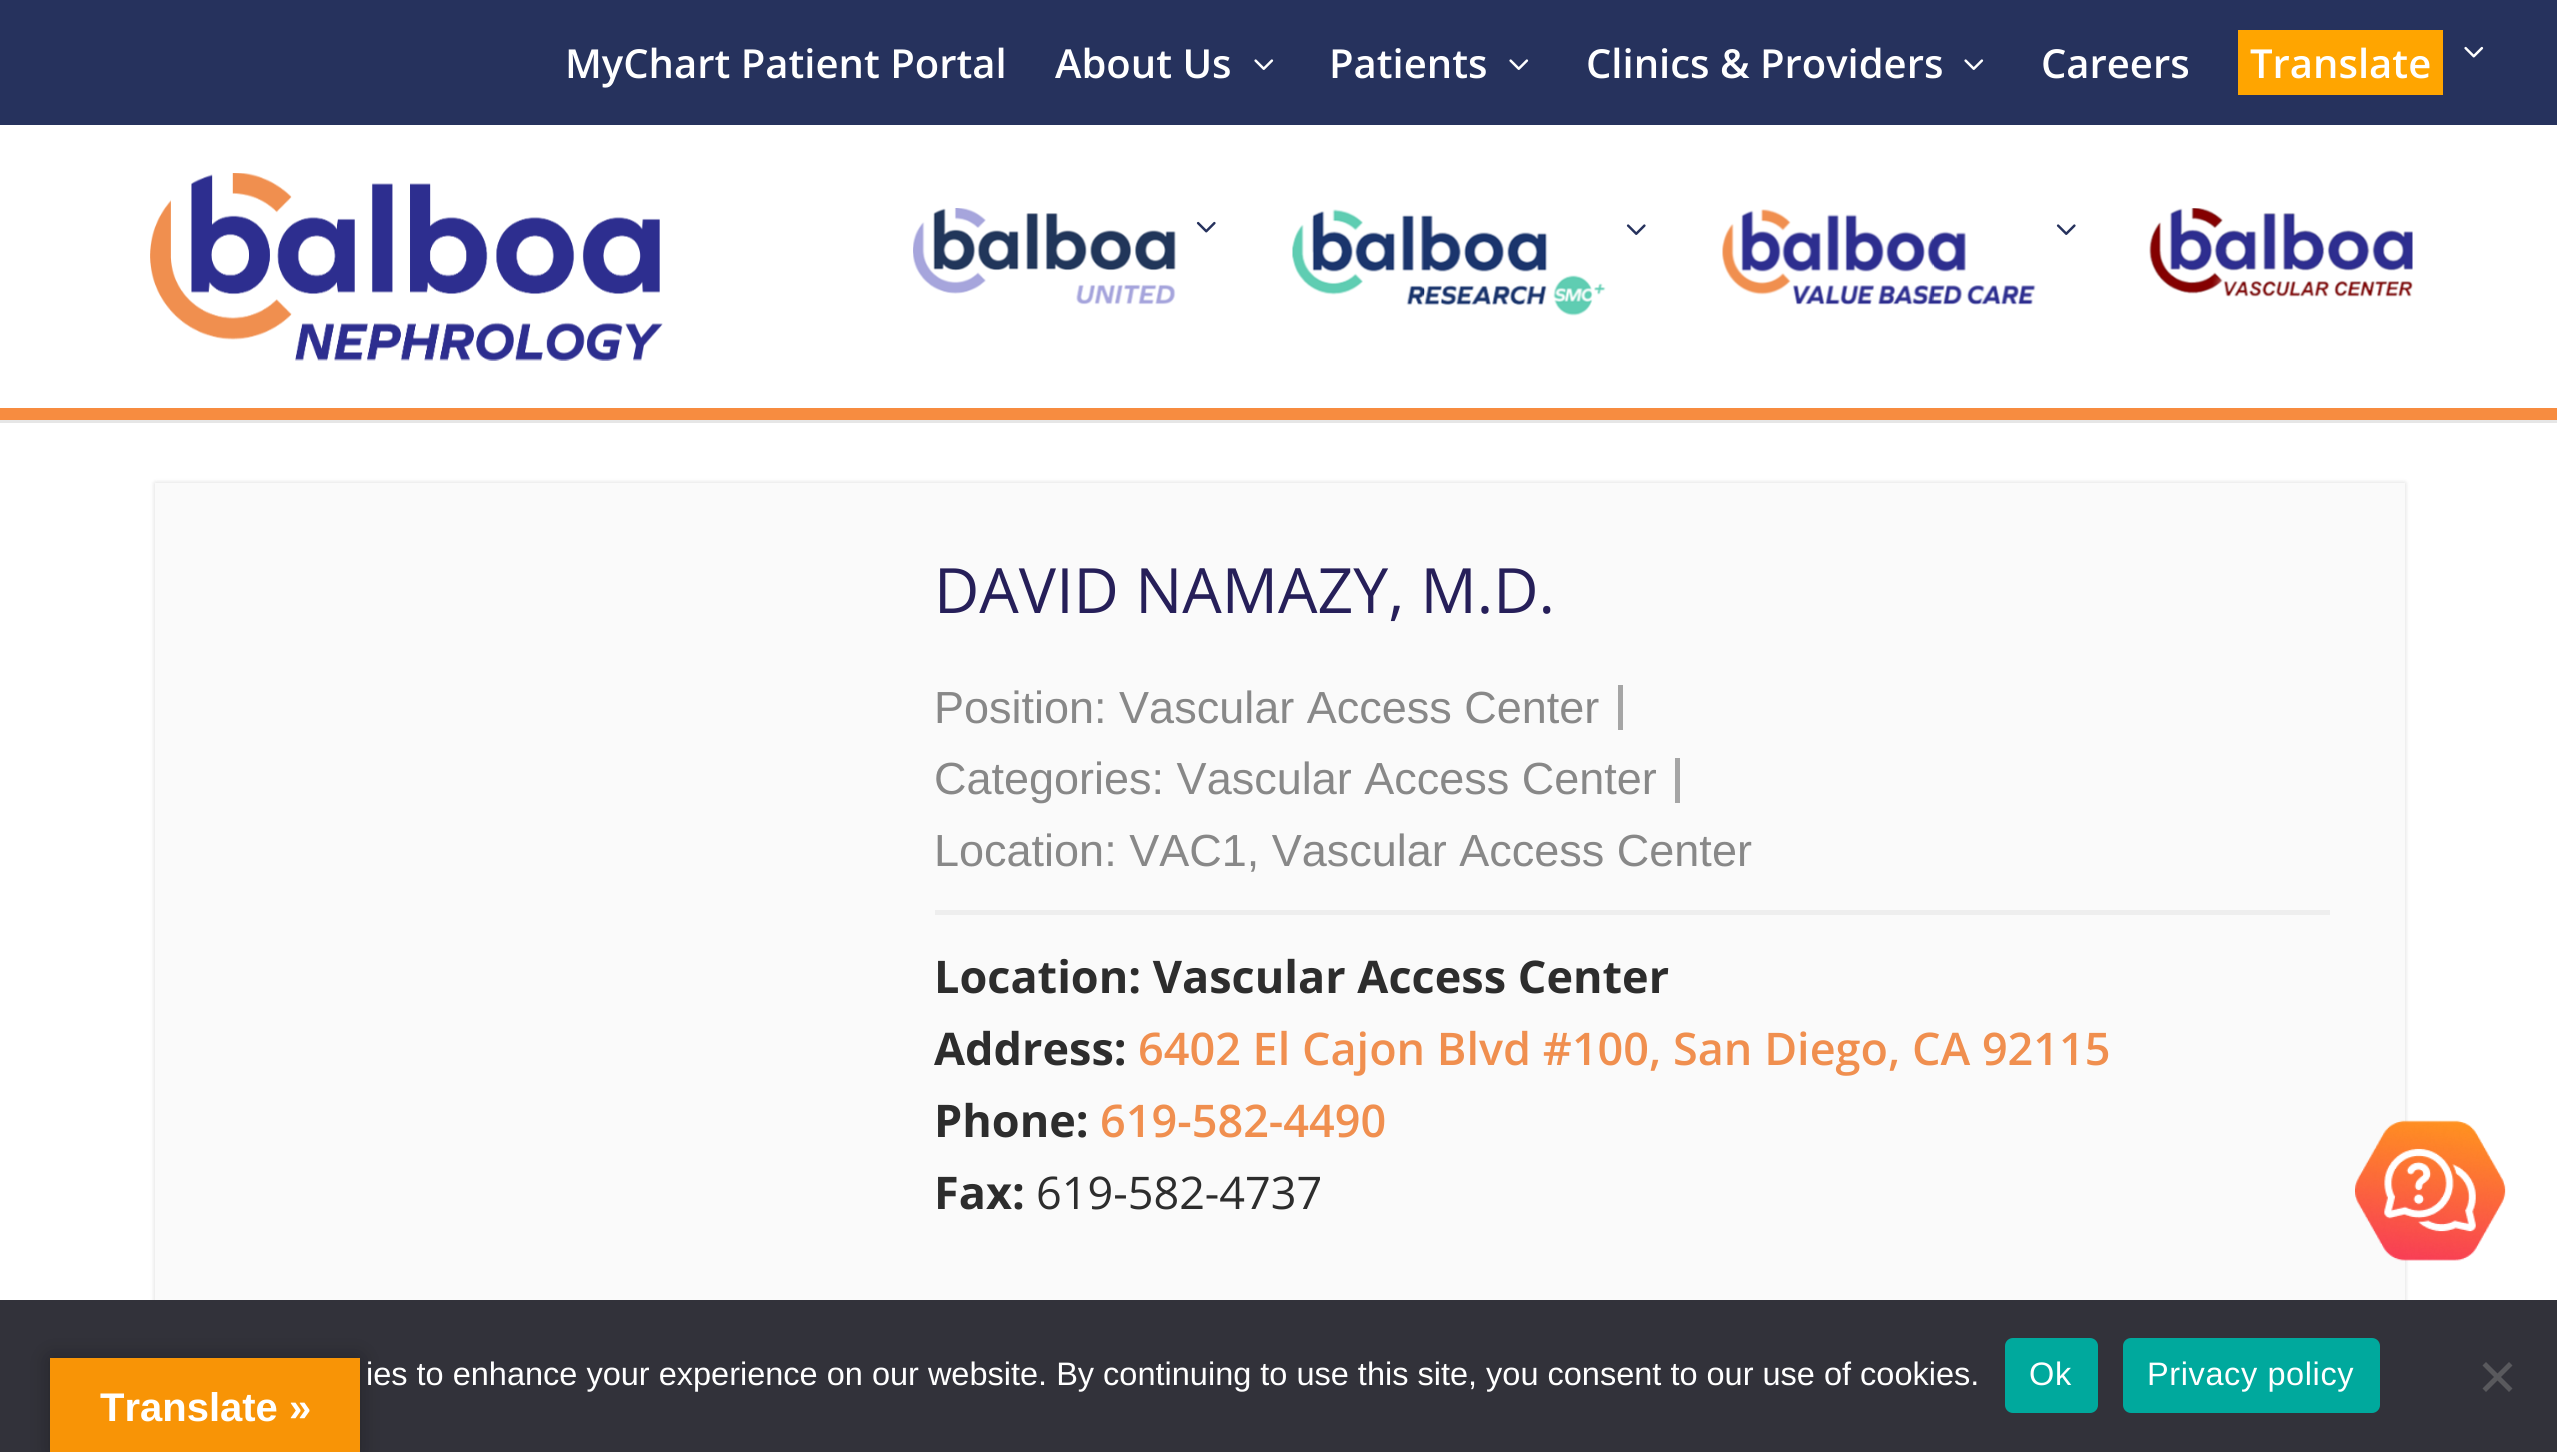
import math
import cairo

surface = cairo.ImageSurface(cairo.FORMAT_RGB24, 2557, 1452)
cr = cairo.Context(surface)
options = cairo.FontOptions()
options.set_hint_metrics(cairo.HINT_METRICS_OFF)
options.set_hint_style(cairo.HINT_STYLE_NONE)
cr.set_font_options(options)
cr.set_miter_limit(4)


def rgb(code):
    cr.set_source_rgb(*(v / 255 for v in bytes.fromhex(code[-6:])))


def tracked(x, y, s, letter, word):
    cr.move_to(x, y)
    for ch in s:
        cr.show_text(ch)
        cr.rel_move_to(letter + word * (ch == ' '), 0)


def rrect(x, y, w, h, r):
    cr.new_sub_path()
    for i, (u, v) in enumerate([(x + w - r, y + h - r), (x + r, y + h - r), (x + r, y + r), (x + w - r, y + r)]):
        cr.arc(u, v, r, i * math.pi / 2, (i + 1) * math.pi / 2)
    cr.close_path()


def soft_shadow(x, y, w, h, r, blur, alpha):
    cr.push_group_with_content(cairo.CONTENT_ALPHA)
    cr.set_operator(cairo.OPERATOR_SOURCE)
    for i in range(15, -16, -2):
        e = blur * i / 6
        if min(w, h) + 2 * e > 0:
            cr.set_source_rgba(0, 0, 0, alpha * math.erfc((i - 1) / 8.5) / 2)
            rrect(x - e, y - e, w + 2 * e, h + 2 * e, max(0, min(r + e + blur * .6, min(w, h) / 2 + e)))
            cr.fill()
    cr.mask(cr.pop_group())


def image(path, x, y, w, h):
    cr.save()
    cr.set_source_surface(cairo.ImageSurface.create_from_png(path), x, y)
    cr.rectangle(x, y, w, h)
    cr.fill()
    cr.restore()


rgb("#ffffff")
cr.paint()
rgb("#26325d")
cr.rectangle(0, 0, 2557, 125)
cr.fill()
image("img/1.png", 1254, 59, 20, 11)
image("img/1.png", 1509, 59, 20, 11)
image("img/1.png", 1964, 59, 20, 11)
rgb("#ffa500")
cr.rectangle(2238, 30, 205, 65)
cr.fill()
image("img/2.png", 2464, 46, 20, 12)
rgb("#e6e6e6")
cr.new_path()
cr.move_to(0, 420)
cr.line_to(0, 423)
cr.line_to(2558, 423)
cr.line_to(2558, 128)
cr.line_to(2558, 420)
cr.close_path()
cr.fill()
rgb("#f78c40")
cr.rectangle(0, 408, 2557, 12)
cr.fill()
image("img/3.png", 150, 173, 513, 188)
image("img/4.png", 913, 208, 263, 97)
image("img/5.png", 1196, 221, 20, 12)
image("img/6.png", 1292, 209, 314, 107)
image("img/7.png", 1626, 224, 20, 11)
image("img/8.png", 1722, 209, 314, 96)
image("img/7.png", 2056, 224, 20, 11)
image("img/9.png", 2149, 208, 264, 89)
rgb("#000000")
soft_shadow(155, 483, 2250, 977, 0, 2.5, 0.15)
for x, y, w, h, color in [
    (155, 483, 2250, 817, "#fafafa"),
    (935, 910, 1395, 5, "#eeeeee"),
    (1618, 685, 5, 45, "#a5a5a5"),
    (1675, 758, 5, 45, "#a5a5a5"),
]:
    rgb(color)
    cr.rectangle(x, y, w, h)
    cr.fill()
image("img/10.png", 2355, 1120, 151, 141)
rgb("#32323a")
cr.rectangle(0, 1300, 2557, 152)
cr.fill()
rgb("#00a99d")
rrect(2005, 1338, 93, 75, 8)
cr.fill()
rrect(2123, 1338, 257, 75, 8)
cr.fill()
rgb("#59595d")
cr.new_path()
cr.move_to(2509, 1362)
cr.line_to(2512.5, 1365.5)
cr.line_to(2486, 1392)
cr.line_to(2482.5, 1388.5)
cr.close_path()
cr.fill()
cr.new_path()
cr.move_to(2482.5, 1365.5)
cr.line_to(2486, 1362)
cr.line_to(2512.5, 1388.5)
cr.line_to(2509, 1392)
cr.close_path()
cr.fill()
rgb("#000000")
soft_shadow(50, 1358, 310, 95, 0, 11, 0.3)
rgb("#f89406")
cr.rectangle(50, 1358, 310, 94)
cr.fill()
cr.select_font_face("Open Sans SemiBold")
cr.set_font_size(40)
rgb("#ffffff")
for x, y, s in [
    (565, 78, "MyChart Patient Portal"),
    (1055, 78, "About Us"),
    (1329, 78, "Patients"),
    (1586, 78, "Clinics & Providers"),
    (2041, 78, "Careers"),
    (2250, 78, "Translate"),
]:
    cr.move_to(x, y)
    cr.show_text(s)
cr.select_font_face("Open Sans")
cr.set_font_size(62.5)
rgb("#261f59")
cr.move_to(934, 613)
cr.show_text("DAVID NAMAZY, M.D.")
cr.select_font_face("Liberation Sans")
cr.set_font_size(45)
rgb("#888888")
for x, y, s in [
    (934, 723, "Position: Vascular Access Center"),
    (934, 794, "Categories: Vascular Access Center"),
    (934, 866, "Location: VAC1, Vascular Access Center"),
]:
    cr.move_to(x, y)
    cr.show_text(s)
cr.select_font_face("Open Sans", cairo.FONT_SLANT_NORMAL, cairo.FONT_WEIGHT_BOLD)
rgb("#2d2d2d")
cr.move_to(934, 993)
cr.show_text("Location: Vascular Access Center")
cr.move_to(934, 1065)
cr.show_text("Address:")
cr.select_font_face("Open Sans SemiBold")
rgb("#f08f4f")
cr.move_to(1138, 1065)
cr.show_text("6402 El Cajon Blvd #100, San Diego, CA 92115")
cr.select_font_face("Open Sans", cairo.FONT_SLANT_NORMAL, cairo.FONT_WEIGHT_BOLD)
rgb("#2d2d2d")
cr.move_to(934, 1137)
cr.show_text("Phone:")
cr.select_font_face("Open Sans SemiBold")
rgb("#f08f4f")
cr.move_to(1100, 1137)
cr.show_text("619-582-4490")
cr.select_font_face("Open Sans", cairo.FONT_SLANT_NORMAL, cairo.FONT_WEIGHT_BOLD)
rgb("#2d2d2d")
cr.move_to(934, 1209)
cr.show_text("Fax:")
cr.select_font_face("Open Sans")
cr.move_to(1036, 1209)
cr.show_text("619-582-4737")
cr.select_font_face("Liberation Sans")
cr.set_font_size(32.5)
rgb("#ffffff")
cr.move_to(366, 1385)
cr.show_text("ies to enhance your experience on our website. By continuing to use this site, you consent to our use of cookies.")
tracked(2029, 1385, "Ok", 0.6, 0)
tracked(2147, 1385, "Privacy policy", 0.6, 0)
cr.select_font_face("Liberation Sans", cairo.FONT_SLANT_NORMAL, cairo.FONT_WEIGHT_BOLD)
cr.set_font_size(40)
cr.move_to(100, 1421)
cr.show_text("Translate »")
surface.write_to_png("page.png")
